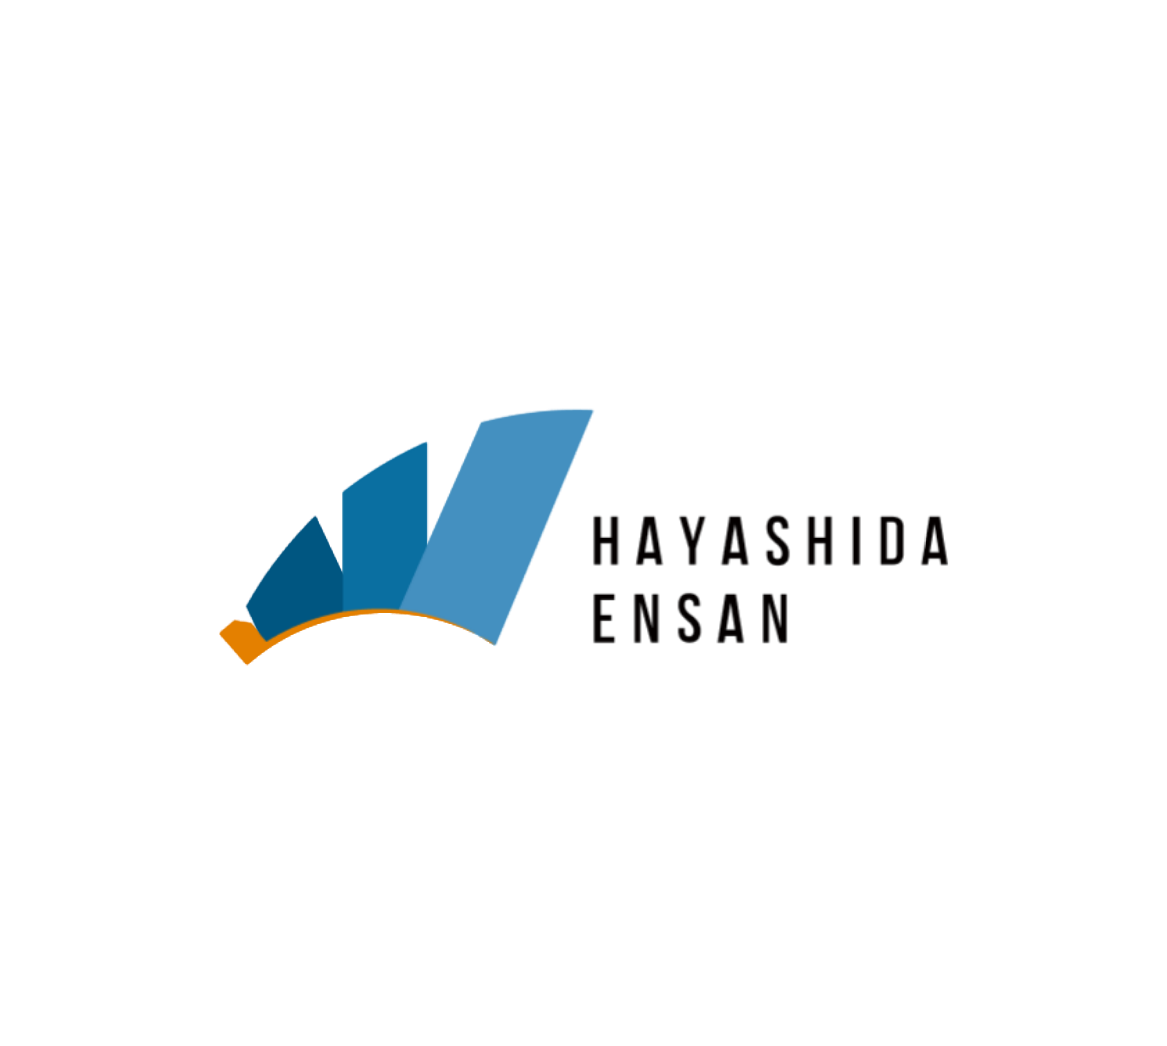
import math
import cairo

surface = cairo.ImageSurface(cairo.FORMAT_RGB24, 1167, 1046)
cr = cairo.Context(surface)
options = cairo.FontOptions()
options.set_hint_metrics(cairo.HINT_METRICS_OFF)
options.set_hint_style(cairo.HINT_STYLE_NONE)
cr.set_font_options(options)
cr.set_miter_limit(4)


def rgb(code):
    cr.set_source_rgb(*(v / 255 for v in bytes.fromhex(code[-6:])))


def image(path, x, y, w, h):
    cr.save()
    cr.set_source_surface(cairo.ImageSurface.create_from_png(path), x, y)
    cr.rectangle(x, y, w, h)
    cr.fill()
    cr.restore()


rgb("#ffffff")
cr.paint()
image("img/5.png", 219, 609, 276, 57)
image("img/4.png", 219, 515, 276, 151)
image("img/3.png", 219, 441, 276, 225)
image("img/1.png", 219, 408, 376, 258)
image("img/2.png", 219, 408, 730, 258)
surface.write_to_png("page.png")
